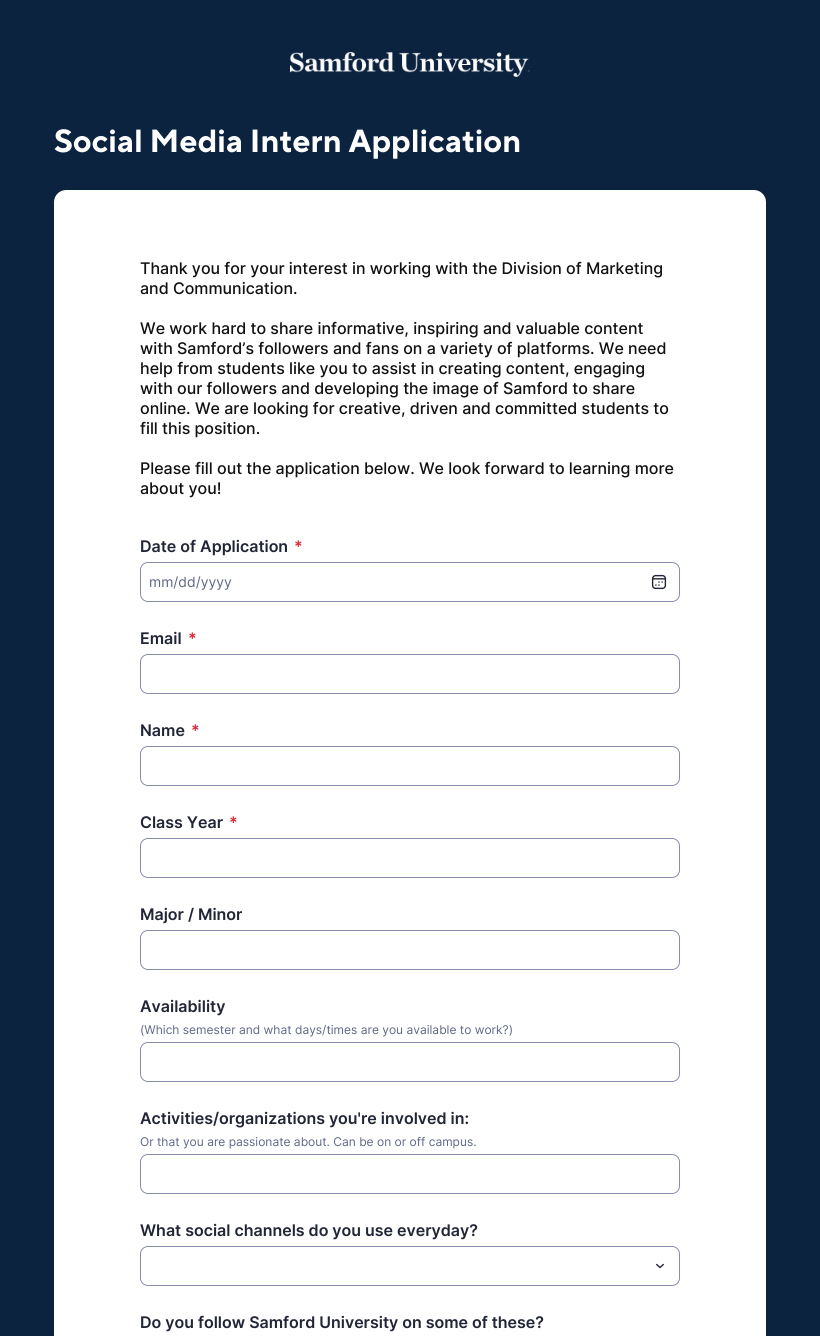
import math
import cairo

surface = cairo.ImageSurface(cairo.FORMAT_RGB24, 820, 1336)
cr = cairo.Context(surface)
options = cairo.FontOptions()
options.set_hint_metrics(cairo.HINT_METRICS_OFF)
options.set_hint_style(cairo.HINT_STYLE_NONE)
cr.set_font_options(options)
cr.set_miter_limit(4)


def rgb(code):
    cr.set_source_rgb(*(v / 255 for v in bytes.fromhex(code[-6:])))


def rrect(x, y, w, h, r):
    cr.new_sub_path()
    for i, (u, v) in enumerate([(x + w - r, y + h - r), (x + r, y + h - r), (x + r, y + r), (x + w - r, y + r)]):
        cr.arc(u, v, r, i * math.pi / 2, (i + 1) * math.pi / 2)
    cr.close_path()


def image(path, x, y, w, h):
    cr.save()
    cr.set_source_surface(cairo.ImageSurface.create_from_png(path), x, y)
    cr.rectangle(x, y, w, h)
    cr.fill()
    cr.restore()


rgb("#0c2340")
cr.paint()
image("img/1.png", 290, 52, 240, 25)
rgb("#ffffff")
cr.new_path()
cr.move_to(66, 190)
cr.line_to(754, 190)
cr.curve_to(760.5, 190, 766, 195.5, 766, 202)
cr.line_to(766, 1336)
cr.line_to(54, 1336)
cr.line_to(54, 202)
cr.curve_to(54, 195.5, 59.5, 190, 66, 190)
cr.close_path()
cr.fill()
rrect(140.5, 562.5, 539, 39, 7.5)
rgb("#878dab")
cr.set_line_width(1)
cr.stroke()
image("img/2.png", 651, 574, 16, 16)
rrect(140.5, 654.5, 539, 39, 7.5)
cr.stroke()
rrect(140.5, 746.5, 539, 39, 7.5)
cr.stroke()
rrect(140.5, 838.5, 539, 39, 7.5)
cr.stroke()
rrect(140.5, 930.5, 539, 39, 7.5)
cr.stroke()
rrect(140.5, 1042.5, 539, 39, 7.5)
cr.stroke()
rrect(140.5, 1154.5, 539, 39, 7.5)
cr.stroke()
image("img/3.png", 656, 1263, 8, 6)
rrect(140.5, 1246.5, 539, 39, 7.5)
cr.stroke()
cr.select_font_face("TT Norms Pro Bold", cairo.FONT_SLANT_NORMAL, cairo.FONT_WEIGHT_BOLD)
cr.set_font_size(32)
rgb("#ffffff")
cr.move_to(54, 152)
cr.show_text("Social Media Intern Application")
cr.select_font_face("Inter Medium")
cr.set_font_size(16)
rgb("#111111")
for x, y, s in [
    (140, 274, "Thank you for your interest in working with the Division of Marketing"),
    (140, 294, "and Communication."),
    (140, 334, "We work hard to share informative, inspiring and valuable content"),
    (140, 354, "with Samford’s followers and fans on a variety of platforms. We need"),
    (140, 374, "help from students like you to assist in creating content, engaging"),
    (140, 394, "with our followers and developing the image of Samford to share"),
    (140, 414, "online. We are looking for creative, driven and committed students to"),
    (140, 434, "fill this position."),
    (140, 474, "Please fill out the application below. We look forward to learning more"),
    (140, 494, "about you!"),
]:
    cr.move_to(x, y)
    cr.show_text(s)
cr.select_font_face("Inter SemiBold")
rgb("#212536")
cr.move_to(140, 552)
cr.show_text("Date of Application")
rgb("#df2a36")
cr.move_to(294, 552)
cr.show_text("*")
cr.select_font_face("Inter")
cr.set_font_size(14)
rgb("#5f6786")
cr.move_to(149, 587)
cr.show_text("mm/dd/yyyy")
cr.select_font_face("Inter SemiBold")
cr.set_font_size(16)
rgb("#212536")
cr.move_to(140, 644)
cr.show_text("Email")
rgb("#df2a36")
cr.move_to(188, 644)
cr.show_text("*")
rgb("#212536")
cr.move_to(140, 736)
cr.show_text("Name")
rgb("#df2a36")
cr.move_to(191, 736)
cr.show_text("*")
rgb("#212536")
cr.move_to(140, 828)
cr.show_text("Class Year")
rgb("#df2a36")
cr.move_to(229, 828)
cr.show_text("*")
rgb("#212536")
cr.move_to(140, 920)
cr.show_text("Major / Minor")
cr.move_to(140, 1012)
cr.show_text("Availability")
cr.select_font_face("Inter")
cr.set_font_size(12)
rgb("#5f6786")
cr.move_to(140, 1034)
cr.show_text("(Which semester and what days/times are you available to work?)")
cr.select_font_face("Inter SemiBold")
cr.set_font_size(16)
rgb("#212536")
cr.move_to(140, 1124)
cr.show_text("Activities/organizations you're involved in:")
cr.select_font_face("Inter")
cr.set_font_size(12)
rgb("#5f6786")
cr.move_to(140, 1146)
cr.show_text("Or that you are passionate about. Can be on or off campus.")
cr.select_font_face("Inter SemiBold")
cr.set_font_size(16)
rgb("#212536")
cr.move_to(140, 1236)
cr.show_text("What social channels do you use everyday?")
cr.move_to(140, 1328)
cr.show_text("Do you follow Samford University on some of these?")
surface.write_to_png("page.png")
